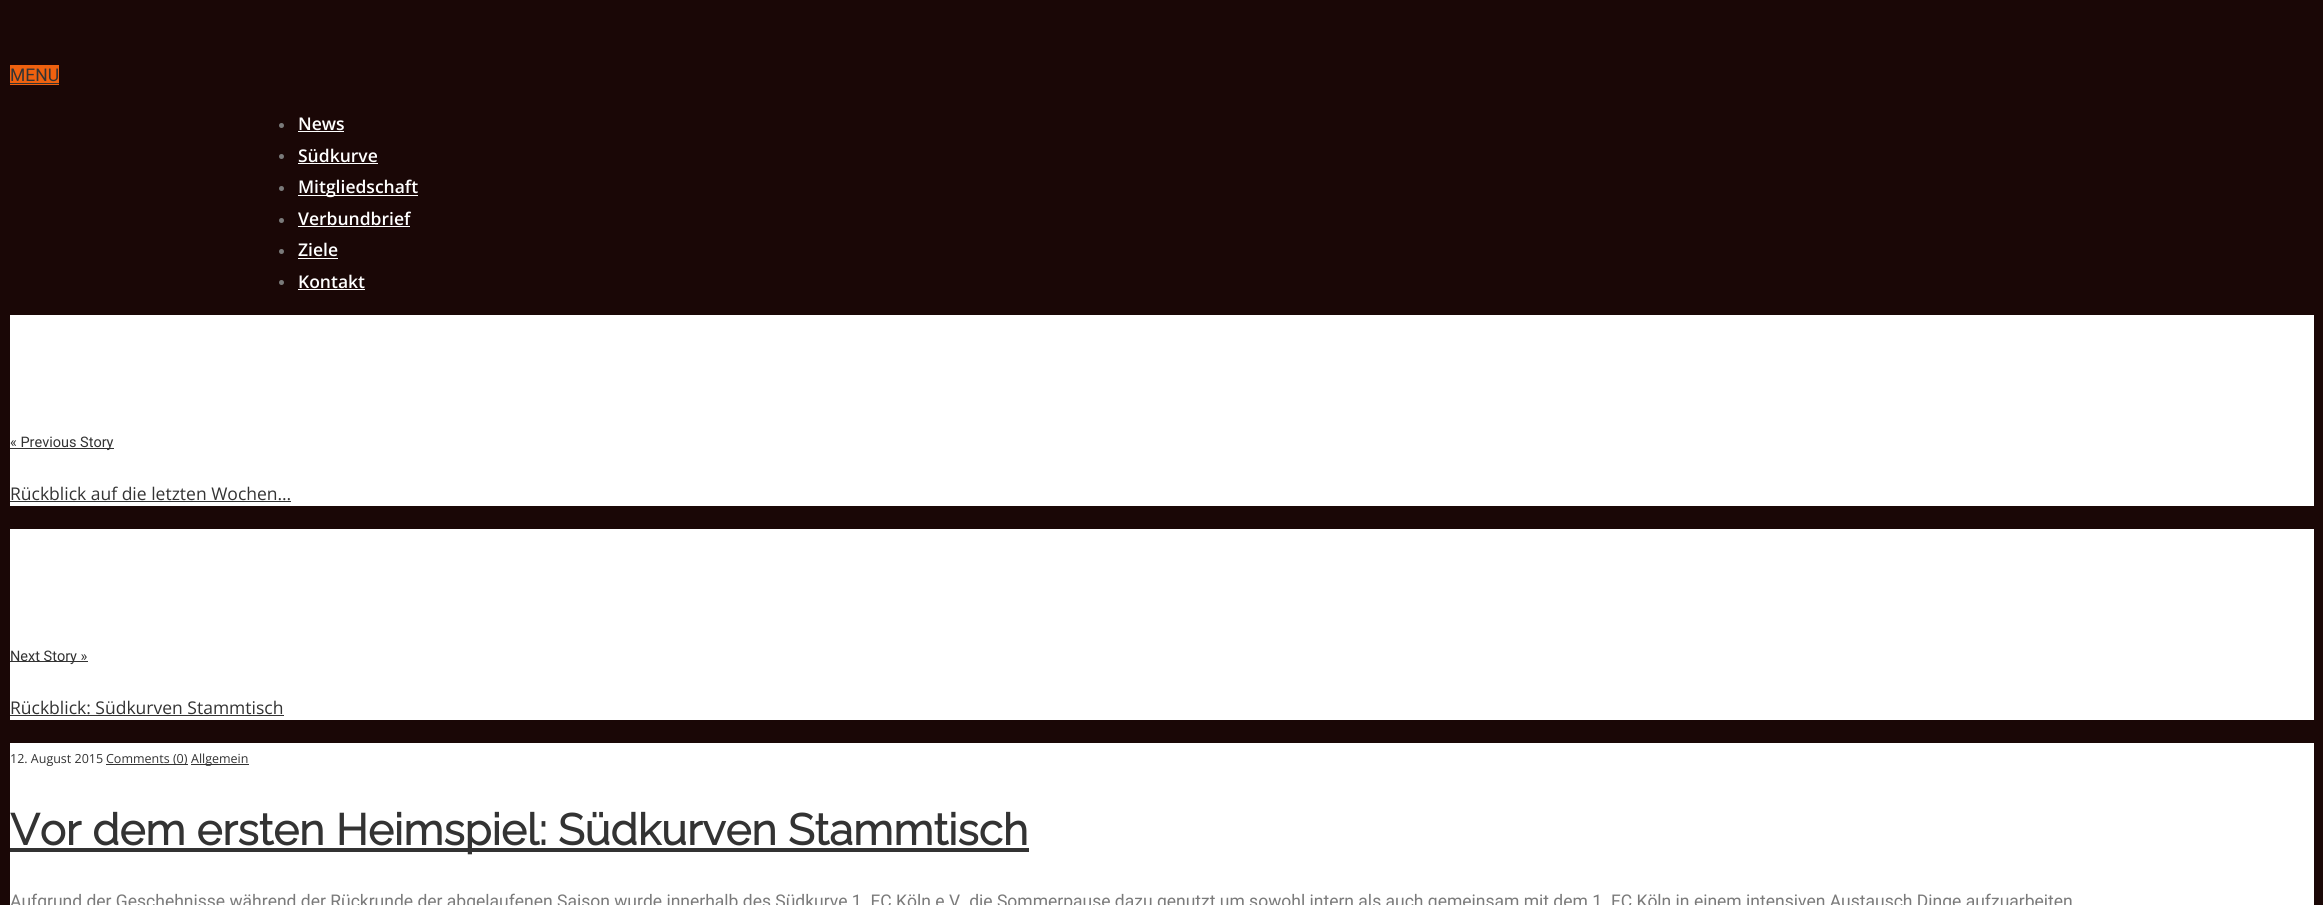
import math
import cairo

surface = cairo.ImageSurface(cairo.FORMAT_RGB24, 2323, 905)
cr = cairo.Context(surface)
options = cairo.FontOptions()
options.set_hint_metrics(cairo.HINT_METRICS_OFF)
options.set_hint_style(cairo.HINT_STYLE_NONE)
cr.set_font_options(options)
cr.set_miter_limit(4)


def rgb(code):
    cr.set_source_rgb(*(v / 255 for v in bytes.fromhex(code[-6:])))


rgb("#1a0706")
cr.paint()
rgb("#ef610f")
cr.rectangle(10, 65, 49, 20)
cr.fill()
rgb("#333333")
cr.rectangle(10, 83, 49, 1)
cr.fill()
rgb("#7a7a7a")
cr.arc(281.5, 125.5, 2.5, 0, 2 * math.pi)
cr.fill()
rgb("#ffffff")
cr.rectangle(298, 131, 46, 1)
cr.fill()
rgb("#7a7a7a")
cr.arc(281.5, 156.5, 2.5, 0, 2 * math.pi)
cr.fill()
rgb("#ffffff")
cr.rectangle(298, 163, 80, 1)
cr.fill()
rgb("#7a7a7a")
cr.arc(281.5, 188.5, 2.5, 0, 2 * math.pi)
cr.fill()
rgb("#ffffff")
cr.rectangle(298, 195, 120, 1)
cr.fill()
rgb("#7a7a7a")
cr.arc(281.5, 220.5, 2.5, 0, 2 * math.pi)
cr.fill()
rgb("#ffffff")
cr.rectangle(298, 226, 112, 1)
cr.fill()
rgb("#7a7a7a")
cr.arc(281.5, 251.5, 2.5, 0, 2 * math.pi)
cr.fill()
rgb("#ffffff")
cr.rectangle(298, 258, 40, 1)
cr.fill()
rgb("#7a7a7a")
cr.arc(281.5, 282.5, 2.5, 0, 2 * math.pi)
cr.fill()
for x, y, w, h, color in [
    (298, 289, 67, 1, "#ffffff"),
    (10, 315, 2304, 191, "#ffffff"),
    (10, 448, 104, 1, "#333333"),
    (10, 501, 281, 1, "#333333"),
    (10, 529, 2304, 191, "#ffffff"),
    (10, 661, 78, 1, "#333333"),
    (10, 715, 274, 1, "#333333"),
    (10, 743, 2304, 162, "#ffffff"),
    (106, 764, 82, 1, "#333333"),
    (191, 764, 58, 1, "#333333"),
    (10, 848, 1019, 4, "#333333"),
]:
    rgb(color)
    cr.rectangle(x, y, w, h)
    cr.fill()
cr.select_font_face("Roboto")
cr.set_font_size(17.5)
cr.move_to(10, 81)
cr.show_text("MENU")
cr.select_font_face("Open Sans SemiBold")
rgb("#ffffff")
for x, y, s in [
    (298, 130, "News"),
    (298, 162, "Südkurve"),
    (298, 193, "Mitgliedschaft"),
    (298, 225, "Verbundbrief"),
    (298, 256, "Ziele"),
    (298, 288, "Kontakt"),
]:
    cr.move_to(x, y)
    cr.show_text(s)
cr.select_font_face("Roboto")
cr.set_font_size(14.5)
rgb("#333333")
cr.move_to(10, 447)
cr.show_text("« Previous Story")
cr.select_font_face("Open Sans")
cr.set_font_size(17.5)
cr.move_to(10, 500)
cr.show_text("Rückblick auf die letzten Wochen…")
cr.select_font_face("Roboto")
cr.set_font_size(14.5)
cr.move_to(10, 661)
cr.show_text("Next Story »")
cr.select_font_face("Open Sans")
cr.set_font_size(17.5)
cr.move_to(10, 714)
cr.show_text("Rückblick: Südkurven Stammtisch")
cr.set_font_size(12.5)
for x, y, s in [
    (10, 763, "12. August 2015"),
    (106, 763, "Comments (0)"),
    (191, 763, "Allgemein"),
]:
    cr.move_to(x, y)
    cr.show_text(s)
cr.select_font_face("Raleway", cairo.FONT_SLANT_NORMAL, cairo.FONT_WEIGHT_BOLD)
cr.set_font_size(43.75)
cr.move_to(10, 845)
cr.show_text("Vor dem ersten Heimspiel: Südkurven Stammtisch")
cr.select_font_face("Roboto")
cr.set_font_size(17.5)
rgb("#7a7a7a")
cr.move_to(10, 907)
cr.show_text("Aufgrund der Geschehnisse während der Rückrunde der abgelaufenen Saison wurde innerhalb des Südkurve 1. FC Köln e.V. die Sommerpause dazu genutzt um sowohl intern als auch gemeinsam mit dem 1. FC Köln in einem intensiven Austausch Dinge aufzuarbeiten")
surface.write_to_png("page.png")
